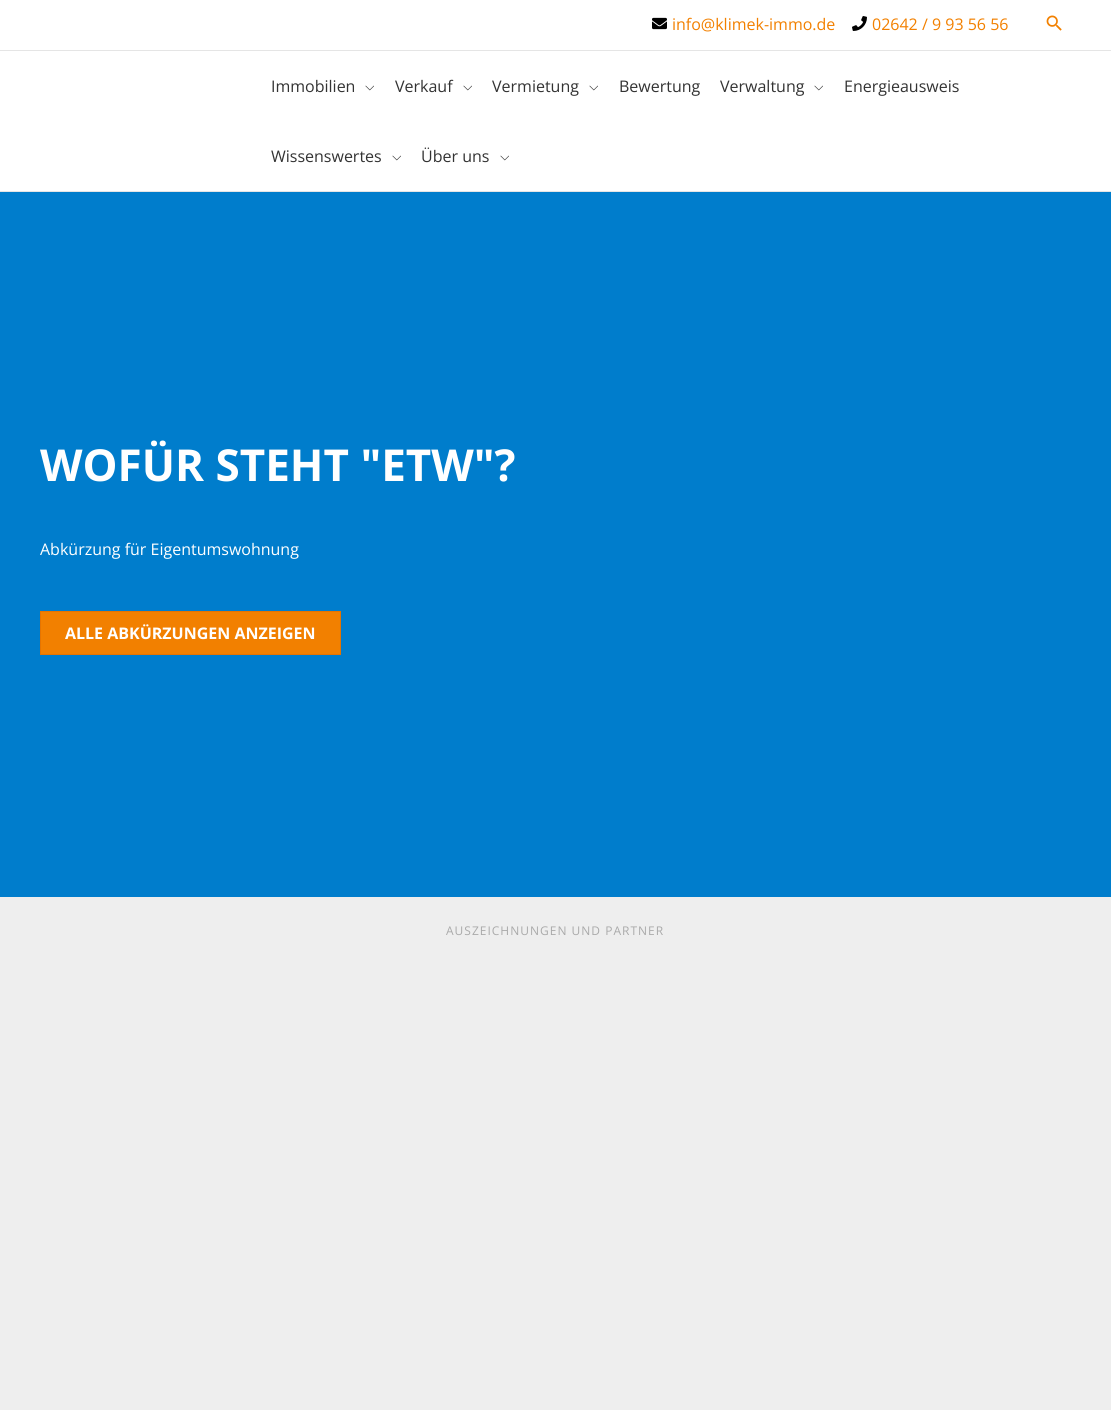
import math
import cairo

surface = cairo.ImageSurface(cairo.FORMAT_RGB24, 1111, 1410)
cr = cairo.Context(surface)
options = cairo.FontOptions()
options.set_hint_metrics(cairo.HINT_METRICS_OFF)
options.set_hint_style(cairo.HINT_STYLE_NONE)
cr.set_font_options(options)
cr.set_miter_limit(4)


def rgb(code):
    cr.set_source_rgb(*(v / 255 for v in bytes.fromhex(code[-6:])))


def tracked(x, y, s, letter, word):
    cr.move_to(x, y)
    for ch in s:
        cr.show_text(ch)
        cr.rel_move_to(letter + word * (ch == ' '), 0)


def image(path, x, y, w, h):
    cr.save()
    cr.set_source_surface(cairo.ImageSurface.create_from_png(path), x, y)
    cr.rectangle(x, y, w, h)
    cr.fill()
    cr.restore()


rgb("#ffffff")
cr.paint()
rgb("#e5e5e5")
cr.rectangle(0, 50, 1111, 1)
cr.fill()
image("img/1.png", 652, 17, 15, 13)
image("img/2.png", 852, 16, 15, 15)
image("img/3.png", 1046, 15, 16, 16)
cr.rectangle(0, 191, 1111, 1)
cr.fill()
image("img/4.png", 365, 85, 9, 6)
image("img/4.png", 463, 85, 9, 6)
image("img/4.png", 589, 85, 9, 6)
image("img/4.png", 814, 85, 9, 6)
image("img/4.png", 392, 155, 9, 6)
image("img/4.png", 500, 155, 9, 6)
rgb("#007dcc")
cr.rectangle(0, 192, 1111, 705)
cr.fill()
rgb("#f28000")
cr.rectangle(40.5, 611.5, 300, 43)
cr.fill_preserve()
rgb("#e67400")
cr.set_line_width(1)
cr.stroke()
rgb("#eeeeee")
cr.rectangle(0, 897, 1111, 513)
cr.fill()
cr.select_font_face("Open Sans")
cr.set_font_size(16)
rgb("#f28000")
cr.move_to(672, 30)
cr.show_text("info@klimek-immo.de")
cr.move_to(872, 30)
cr.show_text("02642 / 9 93 56 56")
rgb("#333333")
for x, y, s in [
    (271, 92, "Immobilien"),
    (395, 92, "Verkauf"),
    (492, 92, "Vermietung"),
    (619, 92, "Bewertung"),
    (720, 92, "Verwaltung"),
    (844, 92, "Energieausweis"),
    (271, 162, "Wissenswertes"),
    (421, 162, "Über uns"),
]:
    cr.move_to(x, y)
    cr.show_text(s)
cr.select_font_face("Open Sans", cairo.FONT_SLANT_NORMAL, cairo.FONT_WEIGHT_BOLD)
cr.set_font_size(44)
rgb("#ffffff")
cr.move_to(40, 481)
cr.show_text("WOFÜR STEHT \"ETW\"?")
cr.select_font_face("Open Sans")
cr.set_font_size(16)
cr.move_to(40, 555)
cr.show_text("Abkürzung für Eigentumswohnung")
cr.select_font_face("Open Sans", cairo.FONT_SLANT_NORMAL, cairo.FONT_WEIGHT_BOLD)
cr.move_to(65, 639)
cr.show_text("ALLE ABKÜRZUNGEN ANZEIGEN")
cr.select_font_face("Open Sans")
cr.set_font_size(12)
rgb("#aaaaaa")
tracked(446, 935, "AUSZEICHNUNGEN UND PARTNER", 1, 0)
surface.write_to_png("page.png")
